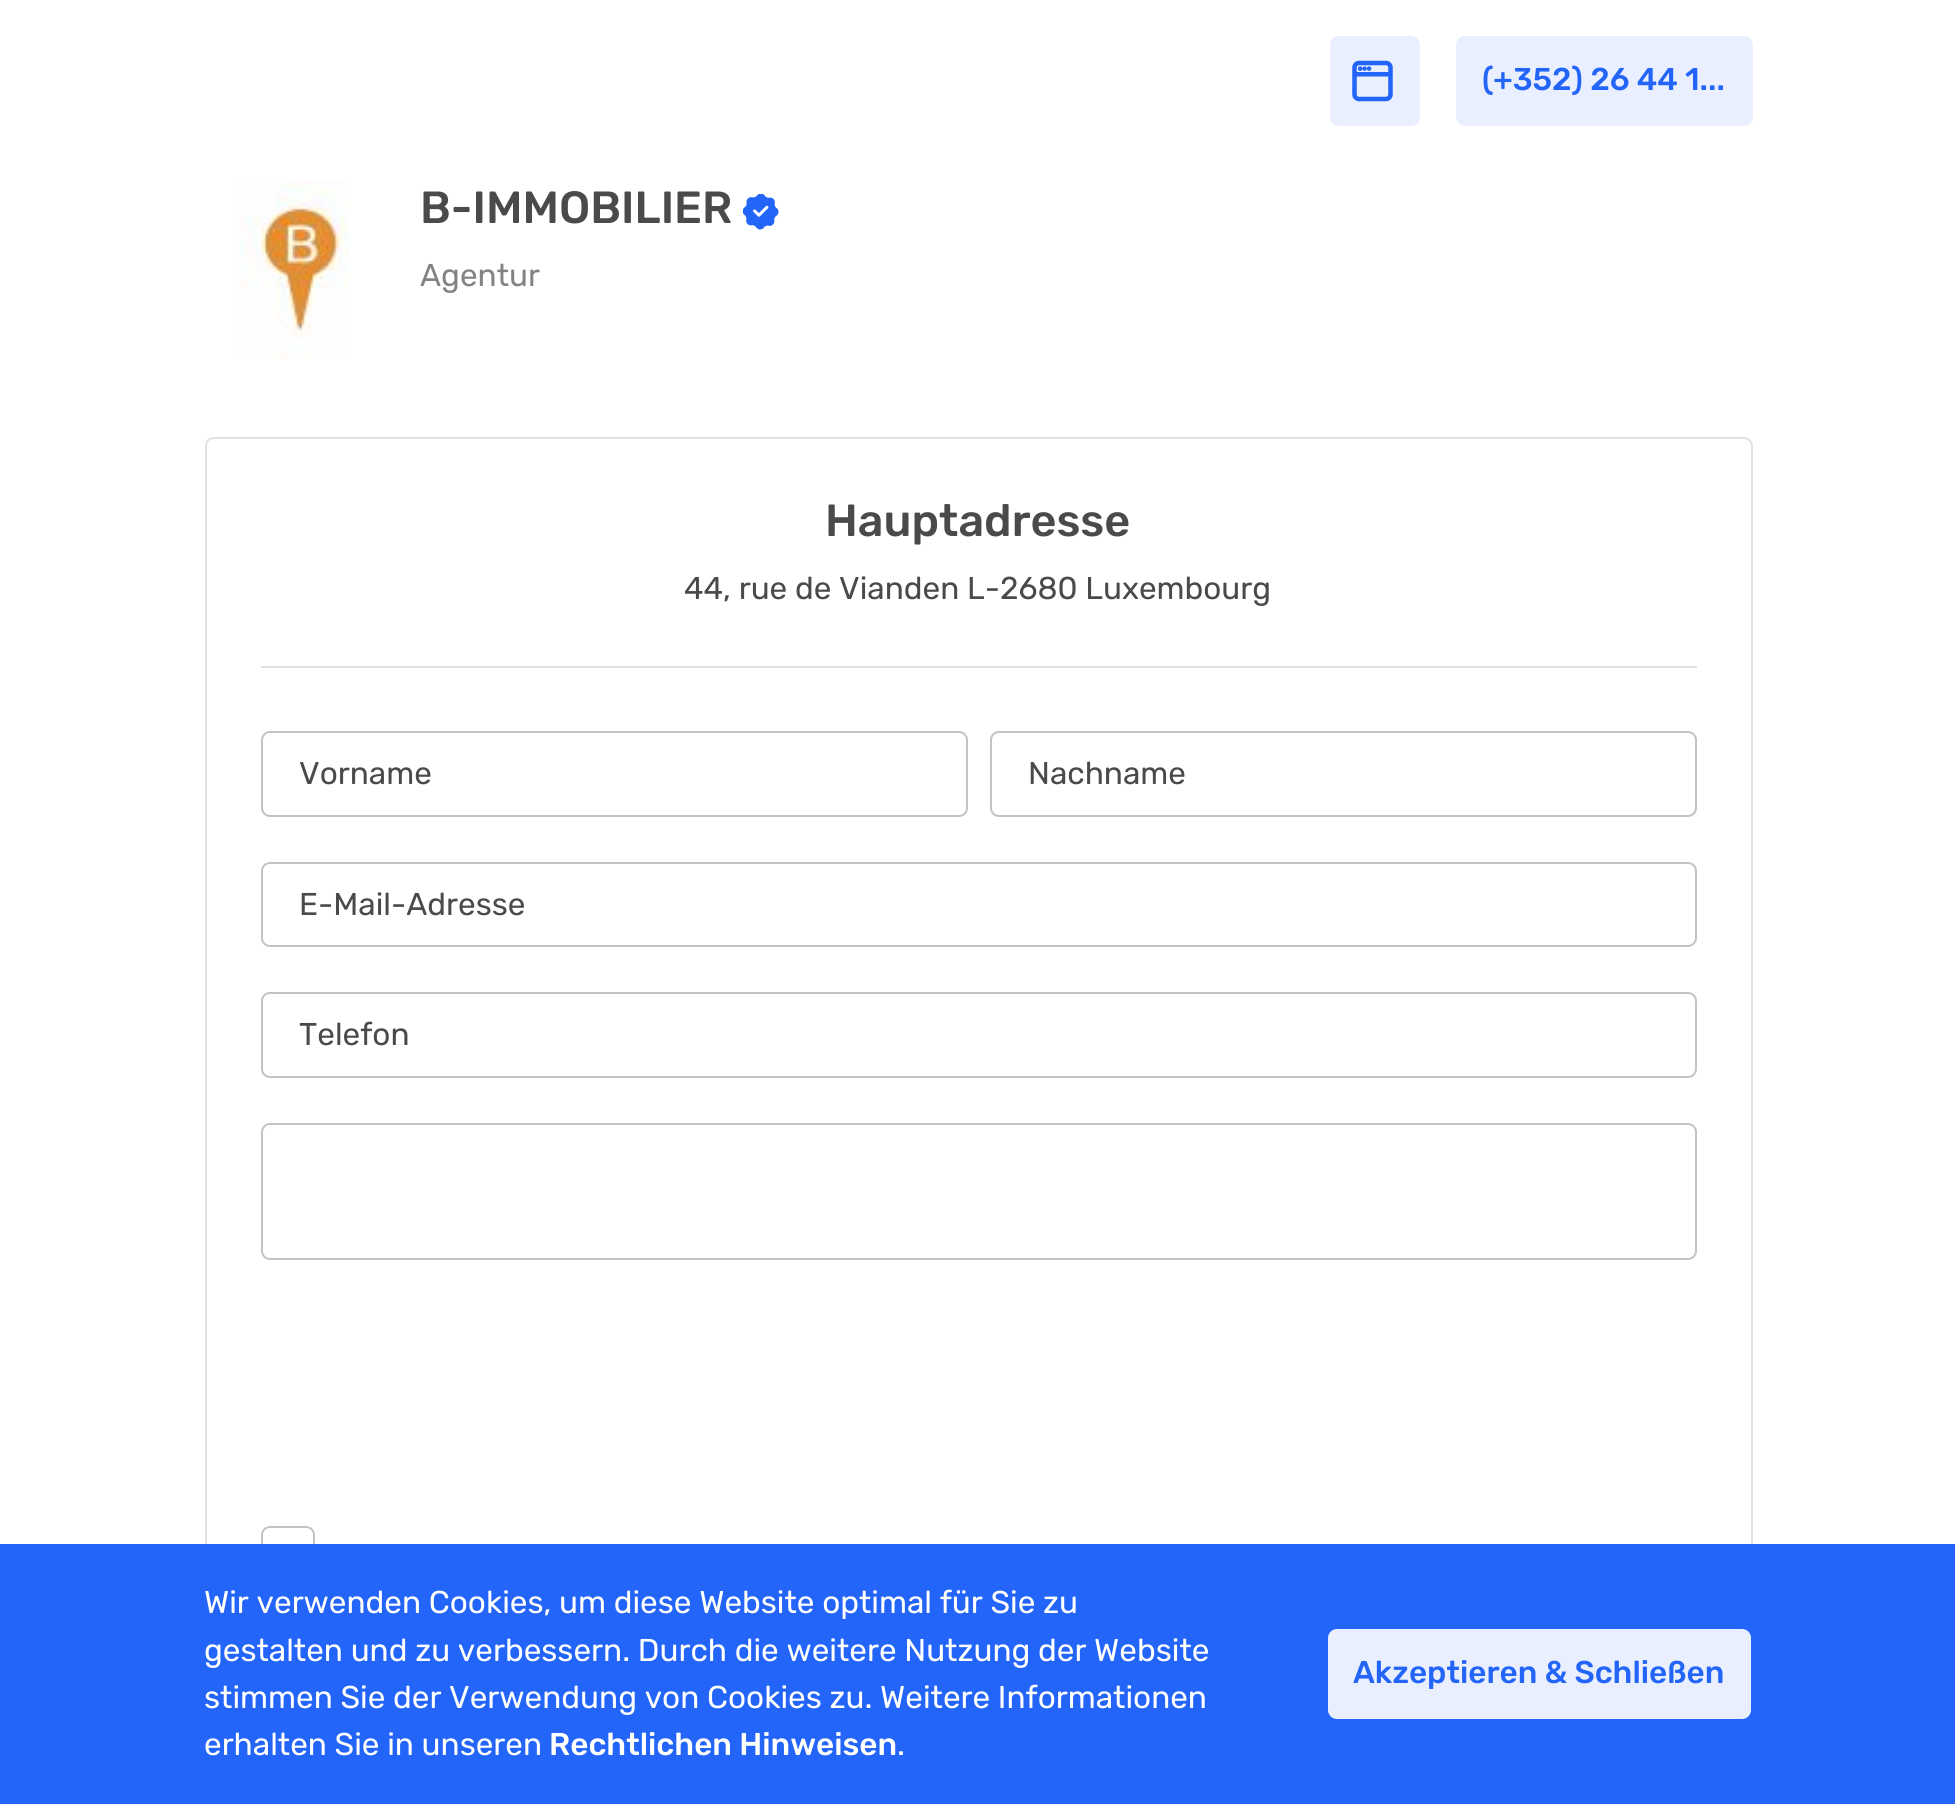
import math
import cairo

surface = cairo.ImageSurface(cairo.FORMAT_RGB24, 1955, 1804)
cr = cairo.Context(surface)
options = cairo.FontOptions()
options.set_hint_metrics(cairo.HINT_METRICS_OFF)
options.set_hint_style(cairo.HINT_STYLE_NONE)
cr.set_font_options(options)
cr.set_miter_limit(4)


def rgb(code):
    cr.set_source_rgb(*(v / 255 for v in bytes.fromhex(code[-6:])))


def rrect(x, y, w, h, r):
    cr.new_sub_path()
    for i, (u, v) in enumerate([(x + w - r, y + h - r), (x + r, y + h - r), (x + r, y + r), (x + w - r, y + r)]):
        cr.arc(u, v, r, i * math.pi / 2, (i + 1) * math.pi / 2)
    cr.close_path()


def image(path, x, y, w, h):
    cr.save()
    cr.set_source_surface(cairo.ImageSurface.create_from_png(path), x, y)
    cr.rectangle(x, y, w, h)
    cr.fill()
    cr.restore()


rgb("#ffffff")
cr.paint()
rgb("#e9effe")
rrect(1330, 36, 90, 90, 9)
cr.fill()
image("img/1.png", 1352, 60, 41, 42)
rrect(1456, 36, 297, 90, 9)
cr.fill()
image("img/2.png", 239, 180, 111, 180)
image("img/3.png", 743, 194, 36, 36)
rrect(206, 438, 1546, 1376, 8)
rgb("#e1e1e0")
cr.stroke()
cr.rectangle(261, 666, 1436, 2)
cr.fill()
rrect(262, 732, 705, 84, 8)
rgb("#c3c3c2")
cr.stroke()
rrect(991, 732, 705, 84, 8)
cr.stroke()
rrect(262, 863, 1434, 83, 8)
cr.stroke()
rrect(262, 993, 1434, 84, 8)
cr.stroke()
rrect(262, 1124, 1434, 135, 8)
cr.stroke()
rrect(262, 1527, 52, 52, 8)
cr.stroke()
rgb("#2365f8")
cr.rectangle(0, 1544, 1955, 260)
cr.fill()
rgb("#e9effe")
rrect(1328, 1629, 423, 90, 9)
cr.fill()
cr.select_font_face("Rubik Medium")
cr.set_font_size(31.5)
rgb("#2365f8")
cr.move_to(1482, 90)
cr.show_text("(+352) 26 44 1...")
cr.set_font_size(45)
rgb("#4a4a49")
cr.move_to(420, 223)
cr.show_text("B-IMMOBILIER")
cr.select_font_face("Rubik")
cr.set_font_size(31.5)
rgb("#838382")
cr.move_to(420, 286)
cr.show_text("Agentur")
cr.select_font_face("Rubik Medium")
cr.set_font_size(45)
rgb("#4a4a49")
cr.move_to(825, 536)
cr.show_text("Hauptadresse")
cr.select_font_face("Rubik")
cr.set_font_size(31.5)
for x, y, s in [
    (684, 599, "44, rue de Vianden L-2680 Luxembourg"),
    (299, 784, "Vorname"),
    (1028, 784, "Nachname"),
    (299, 915, "E-Mail-Adresse"),
    (299, 1045, "Telefon"),
]:
    cr.move_to(x, y)
    cr.show_text(s)
rgb("#ffffff")
for x, y, s in [
    (204, 1613, "Wir verwenden Cookies, um diese Website optimal für Sie zu"),
    (204, 1661, "gestalten und zu verbessern. Durch die weitere Nutzung der Website"),
    (204, 1708, "stimmen Sie der Verwendung von Cookies zu. Weitere Informationen"),
    (204, 1755, "erhalten Sie in unseren"),
]:
    cr.move_to(x, y)
    cr.show_text(s)
cr.select_font_face("Rubik Medium")
cr.move_to(549, 1755)
cr.show_text("Rechtlichen Hinweisen")
cr.select_font_face("Rubik")
cr.move_to(897, 1755)
cr.show_text(".")
cr.select_font_face("Rubik Medium")
rgb("#2365f8")
cr.move_to(1353, 1683)
cr.show_text("Akzeptieren & Schließen")
surface.write_to_png("page.png")
